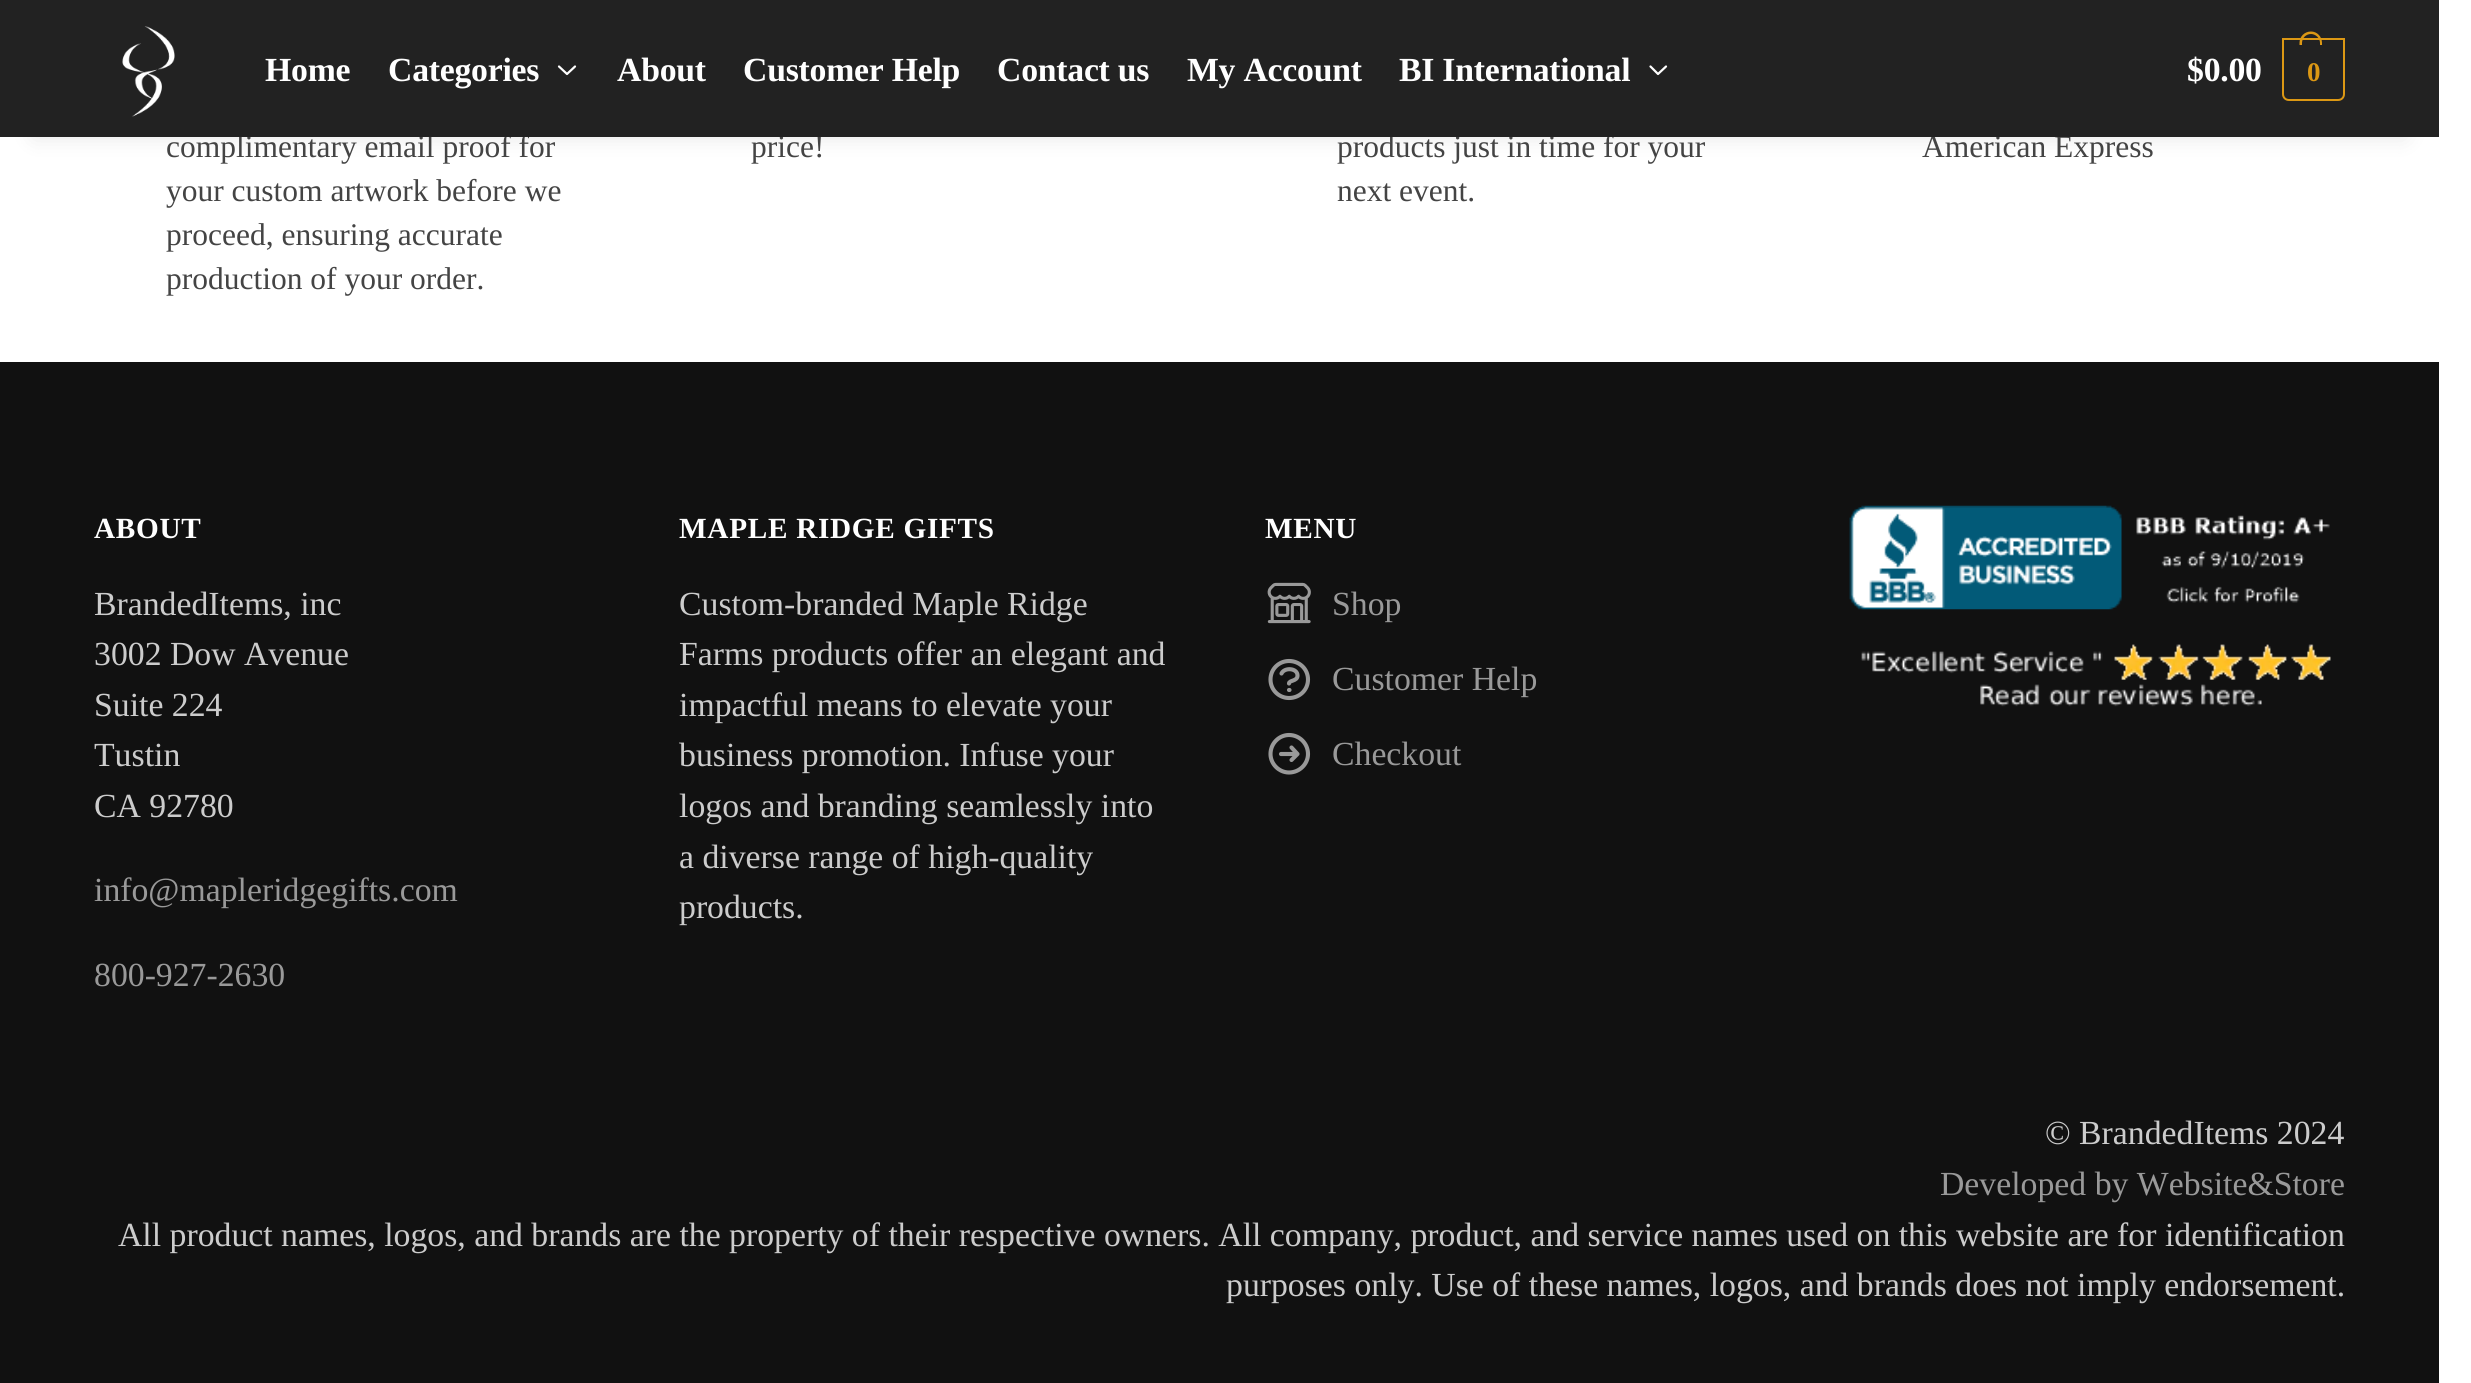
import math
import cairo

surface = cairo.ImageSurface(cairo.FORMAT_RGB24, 2471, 1383)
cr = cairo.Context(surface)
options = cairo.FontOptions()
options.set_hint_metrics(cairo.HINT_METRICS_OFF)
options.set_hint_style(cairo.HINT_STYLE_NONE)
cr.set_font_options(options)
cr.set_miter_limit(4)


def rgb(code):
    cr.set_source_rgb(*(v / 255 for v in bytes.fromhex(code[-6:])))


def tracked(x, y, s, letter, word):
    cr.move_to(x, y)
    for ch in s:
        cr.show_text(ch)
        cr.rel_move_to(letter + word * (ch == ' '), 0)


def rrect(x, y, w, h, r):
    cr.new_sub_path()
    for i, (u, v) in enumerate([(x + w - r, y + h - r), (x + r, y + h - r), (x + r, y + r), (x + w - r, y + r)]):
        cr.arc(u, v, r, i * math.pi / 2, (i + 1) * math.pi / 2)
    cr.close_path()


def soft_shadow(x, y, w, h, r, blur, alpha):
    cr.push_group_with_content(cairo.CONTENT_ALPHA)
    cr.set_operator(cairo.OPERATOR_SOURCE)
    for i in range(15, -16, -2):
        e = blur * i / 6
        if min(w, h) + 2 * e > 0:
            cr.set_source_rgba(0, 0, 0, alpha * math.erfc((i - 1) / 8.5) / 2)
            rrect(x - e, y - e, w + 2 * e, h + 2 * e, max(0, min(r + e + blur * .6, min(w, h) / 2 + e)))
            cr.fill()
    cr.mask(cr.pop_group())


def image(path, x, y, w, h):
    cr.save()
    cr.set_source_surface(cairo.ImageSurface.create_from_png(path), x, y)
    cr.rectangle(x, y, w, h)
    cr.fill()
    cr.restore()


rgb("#ffffff")
cr.paint()
rgb("#000000")
soft_shadow(34, 68, 2371, 69, 0, 11, 0.1)
rgb("#111111")
cr.rectangle(0, 362, 2439, 1021)
cr.fill()
image("img/2.png", 1267, 582, 44, 42)
cr.new_path()
cr.move_to(1281.5, 673.5)
cr.curve_to(1284.5, 667, 1297.5, 668, 1297.5, 675.5)
cr.curve_to(1297.5, 681.5, 1289, 680, 1289, 683.5)
cr.move_to(1289, 690)
cr.line_to(1289.5, 690)
cr.move_to(1308, 679.5)
cr.curve_to(1308, 690, 1299.5, 698, 1289, 698)
cr.curve_to(1279, 698, 1270.5, 690, 1270.5, 679.5)
cr.curve_to(1270.5, 669, 1279, 661, 1289, 661)
cr.curve_to(1299.5, 661, 1308, 669, 1308, 679.5)
cr.close_path()
rgb("#999999")
cr.set_line_width(4.1)
cr.set_line_cap(cairo.LINE_CAP_ROUND)
cr.set_line_join(cairo.LINE_JOIN_ROUND)
cr.stroke()
cr.new_path()
cr.move_to(1291.5, 747.5)
cr.line_to(1297.5, 754)
cr.move_to(1297.5, 754)
cr.line_to(1291.5, 760)
cr.move_to(1297.5, 754)
cr.line_to(1281, 754)
cr.move_to(1308, 754)
cr.curve_to(1308, 764, 1299.5, 772.5, 1289, 772.5)
cr.curve_to(1279, 772.5, 1270.5, 764, 1270.5, 754)
cr.curve_to(1270.5, 743.5, 1279, 735, 1289, 735)
cr.curve_to(1299.5, 735, 1308, 743.5, 1308, 754)
cr.close_path()
cr.stroke()
image("img/3.png", 1849, 505, 481, 105)
image("img/4.png", 1861, 644, 470, 63)
cr.select_font_face("Liberation Serif")
cr.set_font_size(31.5)
rgb("#444444")
for x, y, s in [
    (166, 157, "complimentary email proof for"),
    (166, 201, "your custom artwork before we"),
    (166, 245, "proceed, ensuring accurate"),
    (166, 289, "production of your order."),
    (751, 157, "price!"),
    (1337, 157, "products just in time for your"),
    (1337, 201, "next event."),
    (1922, 157, "American Express"),
]:
    cr.move_to(x, y)
    cr.show_text(s)
rgb("#222222")
cr.rectangle(0, 0, 2439, 137)
cr.fill()
cr.new_path()
cr.move_to(2283, 39)
cr.line_to(2344, 39)
cr.line_to(2344, 94)
cr.curve_to(2344, 97.5, 2341.5, 100, 2338, 100)
cr.line_to(2289, 100)
cr.curve_to(2285.5, 100, 2283, 97.5, 2283, 94)
cr.close_path()
rgb("#dc9814")
cr.set_line_width(2)
cr.set_line_cap(cairo.LINE_CAP_BUTT)
cr.set_line_join(cairo.LINE_JOIN_MITER)
cr.stroke()
cr.set_fill_rule(cairo.FILL_RULE_EVEN_ODD)
cr.new_path()
cr.move_to(2311, 31.5)
cr.curve_to(2317, 31.5, 2322, 36.5, 2322, 43)
cr.line_to(2322, 45)
cr.line_to(2299.5, 45)
cr.line_to(2299.5, 43)
cr.curve_to(2299.5, 36.5, 2304.5, 31.5, 2311, 31.5)
cr.close_path()
cr.move_to(2311, 34)
cr.curve_to(2315.5, 34, 2320, 38, 2320, 43)
cr.line_to(2320, 45)
cr.line_to(2302, 45)
cr.line_to(2302, 43)
cr.curve_to(2302, 38, 2306, 34, 2311, 34)
cr.close_path()
cr.fill()
cr.select_font_face("Liberation Serif", cairo.FONT_SLANT_NORMAL, cairo.FONT_WEIGHT_BOLD)
cr.set_font_size(27)
tracked(2307, 81, "0", -2, 0)
cr.new_path()
cr.move_to(1666, 66.5)
cr.line_to(1658, 74)
cr.line_to(1650.5, 66.5)
rgb("#ffffff")
cr.set_line_width(2.2)
cr.set_line_cap(cairo.LINE_CAP_ROUND)
cr.set_line_join(cairo.LINE_JOIN_ROUND)
cr.stroke()
cr.set_font_size(33.75)
for x, y, s in [
    (1399, 81, "BI International"),
    (1187, 81, "My Account"),
    (997, 81, "Contact us"),
    (743, 81, "Customer Help"),
    (617, 81, "About"),
]:
    tracked(x, y, s, -0.25, 0)
cr.new_path()
cr.move_to(575, 66.5)
cr.line_to(567, 74)
cr.line_to(559, 66.5)
cr.stroke()
tracked(388, 81, "Categories", -0.25, 0)
tracked(265, 81, "Home", -0.25, 0)
image("img/1.png", 122, 26, 53, 91)
tracked(2187, 81, "$0.00", -0.25, 0)
cr.set_font_size(29.25)
tracked(94, 538, "ABOUT", 0.7, 0)
cr.select_font_face("Liberation Serif")
cr.set_font_size(33.75)
rgb("#cccccc")
for x, y, s in [
    (94, 615, "BrandedItems, inc"),
    (94, 665, "3002 Dow Avenue"),
    (94, 716, "Suite 224"),
    (94, 766, "Tustin"),
    (94, 817, "CA 92780"),
]:
    cr.move_to(x, y)
    cr.show_text(s)
rgb("#999999")
cr.move_to(94, 901)
cr.show_text("info@mapleridgegifts.com")
cr.move_to(94, 986)
cr.show_text("800-927-2630")
cr.select_font_face("Liberation Serif", cairo.FONT_SLANT_NORMAL, cairo.FONT_WEIGHT_BOLD)
cr.set_font_size(29.25)
rgb("#ffffff")
tracked(679, 538, "MAPLE RIDGE GIFTS", 0.7, 0)
cr.select_font_face("Liberation Serif")
cr.set_font_size(33.75)
rgb("#cccccc")
for x, y, s in [
    (679, 615, "Custom-branded Maple Ridge"),
    (679, 665, "Farms products offer an elegant and"),
    (679, 716, "impactful means to elevate your"),
    (679, 766, "business promotion. Infuse your"),
    (679, 817, "logos and branding seamlessly into"),
    (679, 868, "a diverse range of high-quality"),
    (679, 918, "products."),
]:
    cr.move_to(x, y)
    cr.show_text(s)
cr.select_font_face("Liberation Serif", cairo.FONT_SLANT_NORMAL, cairo.FONT_WEIGHT_BOLD)
cr.set_font_size(29.25)
rgb("#ffffff")
tracked(1265, 538, "MENU", 0.7, 0)
cr.select_font_face("Liberation Serif")
cr.set_font_size(33.75)
rgb("#999999")
for x, y, s in [
    (1332, 615, "Shop"),
    (1332, 690, "Customer Help"),
    (1332, 765, "Checkout"),
]:
    cr.move_to(x, y)
    cr.show_text(s)
rgb("#cccccc")
cr.move_to(2045, 1144)
cr.show_text("© BrandedItems 2024")
rgb("#999999")
cr.move_to(1940, 1195)
cr.show_text("Developed by Website&Store")
rgb("#cccccc")
cr.move_to(118, 1246)
cr.show_text("All product names, logos, and brands are the property of their respective owners. All company, product, and service names used on this website are for identification")
cr.move_to(1226, 1296)
cr.show_text("purposes only. Use of these names, logos, and brands does not imply endorsement.")
surface.write_to_png("page.png")
